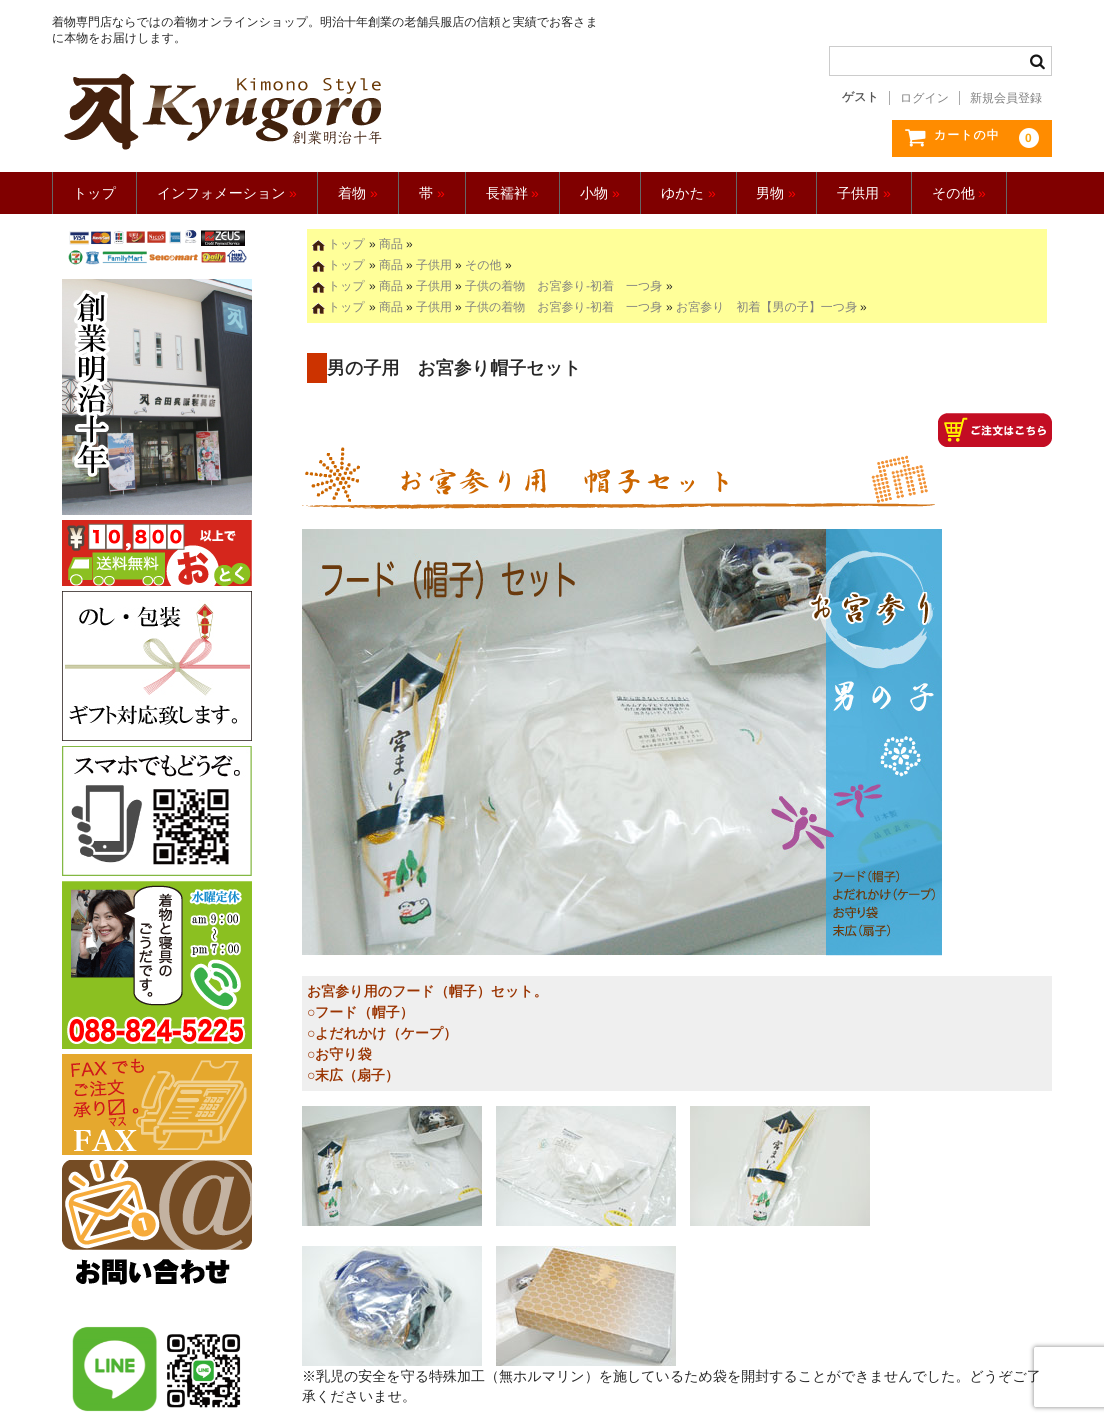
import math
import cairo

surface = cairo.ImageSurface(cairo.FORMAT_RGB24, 1104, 1421)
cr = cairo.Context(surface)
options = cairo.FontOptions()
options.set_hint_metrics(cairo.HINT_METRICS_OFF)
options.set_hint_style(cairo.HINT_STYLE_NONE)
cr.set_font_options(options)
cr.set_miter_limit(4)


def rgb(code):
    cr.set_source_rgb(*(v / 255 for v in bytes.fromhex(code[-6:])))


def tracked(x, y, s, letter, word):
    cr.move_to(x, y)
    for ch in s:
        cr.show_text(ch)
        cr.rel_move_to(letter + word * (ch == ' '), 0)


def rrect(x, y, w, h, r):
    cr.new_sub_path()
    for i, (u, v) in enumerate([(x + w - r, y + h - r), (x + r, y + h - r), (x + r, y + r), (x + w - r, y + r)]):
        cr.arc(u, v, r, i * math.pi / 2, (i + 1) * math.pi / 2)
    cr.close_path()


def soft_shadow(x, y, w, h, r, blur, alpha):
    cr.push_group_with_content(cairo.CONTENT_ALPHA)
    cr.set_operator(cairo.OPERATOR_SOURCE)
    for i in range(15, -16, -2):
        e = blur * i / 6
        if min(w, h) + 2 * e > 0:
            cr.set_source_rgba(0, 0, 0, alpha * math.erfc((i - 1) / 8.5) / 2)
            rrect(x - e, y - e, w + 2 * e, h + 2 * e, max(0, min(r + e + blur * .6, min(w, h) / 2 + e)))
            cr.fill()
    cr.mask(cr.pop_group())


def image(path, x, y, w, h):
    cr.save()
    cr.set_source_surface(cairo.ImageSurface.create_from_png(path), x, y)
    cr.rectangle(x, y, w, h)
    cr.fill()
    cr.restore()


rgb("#ffffff")
cr.paint()
image("img/1.png", 64, 73, 318, 77)
cr.rectangle(829.5, 46.5, 222, 29)
rgb("#cccccc")
cr.set_line_width(1)
cr.stroke()
image("img/2.png", 1030, 54, 15, 16)
for x, y, w, h, color in [
    (889, 91, 1, 14, "#aaaaaa"),
    (959, 91, 1, 14, "#aaaaaa"),
    (892, 120, 160, 37, "#ff8c00"),
]:
    rgb(color)
    cr.rectangle(x, y, w, h)
    cr.fill()
image("img/3.png", 905, 129, 21, 18)
rgb("#ffffff")
cr.arc(1029, 138, 10, 0, 2 * math.pi)
cr.fill()
for x, y, w, h, color in [
    (0, 172, 1104, 42, "#800000"),
    (136, 172, 1, 42, "#666666"),
    (52, 172, 1, 42, "#666666"),
    (317, 172, 1, 42, "#666666"),
    (398, 172, 1, 42, "#666666"),
    (465, 172, 1, 42, "#666666"),
    (559, 172, 1, 42, "#666666"),
    (640, 172, 1, 42, "#666666"),
    (736, 172, 1, 42, "#666666"),
    (816, 172, 1, 42, "#666666"),
    (911, 172, 1, 42, "#666666"),
    (1006, 172, 1, 42, "#666666"),
]:
    rgb(color)
    cr.rectangle(x, y, w, h)
    cr.fill()
image("img/4.png", 68, 230, 179, 35)
image("img/5.png", 62, 279, 190, 236)
image("img/6.png", 62, 520, 190, 66)
image("img/7.png", 62, 591, 190, 150)
image("img/8.png", 62, 746, 190, 130)
image("img/9.png", 62, 881, 190, 168)
image("img/10.png", 62, 1054, 190, 101)
image("img/11.png", 62, 1160, 190, 125)
image("img/12.png", 72, 1326, 169, 86)
rgb("#ffff99")
cr.rectangle(307, 229, 740, 94)
cr.fill()
image("img/13.png", 312, 240, 13, 11)
image("img/13.png", 312, 261, 13, 11)
image("img/13.png", 312, 282, 13, 11)
image("img/13.png", 312, 303, 13, 11)
rgb("#cc3300")
cr.rectangle(307, 353, 20, 30)
cr.fill()
image("img/14.png", 938, 413, 114, 34)
image("img/15.png", 302, 447, 633, 62)
image("img/16.png", 302, 529, 640, 427)
rgb("#efefef")
cr.rectangle(302, 976, 750, 115)
cr.fill()
image("img/17.png", 302, 1106, 180, 120)
image("img/18.png", 496, 1106, 180, 120)
image("img/19.png", 690, 1106, 180, 120)
image("img/20.png", 302, 1246, 180, 120)
image("img/21.png", 496, 1246, 180, 120)
cr.save()
cr.set_fill_rule(cairo.FILL_RULE_EVEN_ODD)
cr.new_path()
cr.move_to(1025, 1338)
cr.line_to(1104, 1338)
cr.line_to(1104, 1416)
cr.line_to(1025, 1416)
cr.close_path()
cr.move_to(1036, 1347)
cr.line_to(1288, 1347)
cr.curve_to(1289, 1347, 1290, 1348, 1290, 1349)
cr.line_to(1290, 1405)
cr.curve_to(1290, 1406, 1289, 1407, 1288, 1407)
cr.line_to(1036, 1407)
cr.curve_to(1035, 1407, 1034, 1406, 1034, 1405)
cr.line_to(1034, 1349)
cr.curve_to(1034, 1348, 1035, 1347, 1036, 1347)
cr.close_path()
cr.clip()
rgb("#808080")
soft_shadow(1034, 1347, 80, 60, 2, 2.5, 1)
cr.restore()
cr.select_font_face("WenQuanYi Zen Hei Medium")
cr.set_font_size(12)
rgb("#262626")
cr.move_to(52, 26)
cr.show_text("着物専門店ならではの着物オンラインショップ。明治十年創業の老舗呉服店の信頼と実績でお客さま")
cr.move_to(52, 42)
cr.show_text("に本物をお届けします。")
cr.select_font_face("WenQuanYi Zen Hei", cairo.FONT_SLANT_NORMAL, cairo.FONT_WEIGHT_BOLD)
rgb("#565656")
cr.move_to(842, 101)
cr.show_text("ゲスト")
cr.select_font_face("WenQuanYi Zen Hei Medium")
rgb("#808080")
cr.move_to(900, 102)
cr.show_text("ログイン")
cr.move_to(970, 102)
cr.show_text("新規会員登録")
cr.select_font_face("WenQuanYi Zen Hei", cairo.FONT_SLANT_NORMAL, cairo.FONT_WEIGHT_BOLD)
rgb("#ffffff")
tracked(934, 139, "カートの中", 1, 0)
cr.select_font_face("Liberation Sans", cairo.FONT_SLANT_NORMAL, cairo.FONT_WEIGHT_BOLD)
rgb("#fba60d")
tracked(1025, 142, "0", 1, 0)
cr.select_font_face("WenQuanYi Zen Hei Medium")
cr.set_font_size(14)
rgb("#ffffff")
cr.move_to(73, 198)
cr.show_text("トップ")
cr.move_to(157, 198)
cr.show_text("インフォメーション")
cr.select_font_face("Liberation Sans")
rgb("#ff0000")
cr.move_to(289, 198)
cr.show_text("»")
cr.select_font_face("WenQuanYi Zen Hei Medium")
rgb("#ffffff")
cr.move_to(338, 198)
cr.show_text("着物")
cr.select_font_face("Liberation Sans")
rgb("#ff0000")
cr.move_to(370, 198)
cr.show_text("»")
cr.select_font_face("WenQuanYi Zen Hei Medium")
rgb("#ffffff")
cr.move_to(419, 198)
cr.show_text("帯")
cr.select_font_face("Liberation Sans")
rgb("#ff0000")
cr.move_to(437, 198)
cr.show_text("»")
cr.select_font_face("WenQuanYi Zen Hei Medium")
rgb("#ffffff")
cr.move_to(486, 198)
cr.show_text("長襦袢")
cr.select_font_face("Liberation Sans")
rgb("#ff0000")
cr.move_to(531, 198)
cr.show_text("»")
cr.select_font_face("WenQuanYi Zen Hei Medium")
rgb("#ffffff")
cr.move_to(580, 198)
cr.show_text("小物")
cr.select_font_face("Liberation Sans")
rgb("#ff0000")
cr.move_to(612, 198)
cr.show_text("»")
cr.select_font_face("WenQuanYi Zen Hei Medium")
rgb("#ffffff")
cr.move_to(661, 198)
cr.show_text("ゆかた")
cr.select_font_face("Liberation Sans")
rgb("#ff0000")
cr.move_to(708, 198)
cr.show_text("»")
cr.select_font_face("WenQuanYi Zen Hei Medium")
rgb("#ffffff")
cr.move_to(756, 198)
cr.show_text("男物")
cr.select_font_face("Liberation Sans")
rgb("#ff0000")
cr.move_to(788, 198)
cr.show_text("»")
cr.select_font_face("WenQuanYi Zen Hei Medium")
rgb("#ffffff")
cr.move_to(837, 198)
cr.show_text("子供用")
cr.select_font_face("Liberation Sans")
rgb("#ff0000")
cr.move_to(883, 198)
cr.show_text("»")
cr.select_font_face("WenQuanYi Zen Hei Medium")
rgb("#ffffff")
cr.move_to(932, 198)
cr.show_text("その他")
cr.select_font_face("Liberation Sans")
rgb("#ff0000")
cr.move_to(978, 198)
cr.show_text("»")
cr.select_font_face("WenQuanYi Zen Hei Medium")
cr.set_font_size(12)
rgb("#808080")
cr.move_to(328, 248)
cr.show_text("トップ")
cr.select_font_face("Liberation Sans")
rgb("#262626")
cr.move_to(369, 248)
cr.show_text("»")
cr.select_font_face("WenQuanYi Zen Hei Medium")
rgb("#808080")
cr.move_to(379, 248)
cr.show_text("商品")
cr.select_font_face("Liberation Sans")
rgb("#262626")
cr.move_to(406, 248)
cr.show_text("»")
cr.select_font_face("WenQuanYi Zen Hei Medium")
rgb("#808080")
cr.move_to(328, 269)
cr.show_text("トップ")
cr.select_font_face("Liberation Sans")
rgb("#262626")
cr.move_to(369, 269)
cr.show_text("»")
cr.select_font_face("WenQuanYi Zen Hei Medium")
rgb("#808080")
cr.move_to(379, 269)
cr.show_text("商品")
cr.select_font_face("Liberation Sans")
rgb("#262626")
cr.move_to(406, 269)
cr.show_text("»")
cr.select_font_face("WenQuanYi Zen Hei Medium")
rgb("#808080")
cr.move_to(416, 269)
cr.show_text("子供用")
cr.select_font_face("Liberation Sans")
rgb("#262626")
cr.move_to(455, 269)
cr.show_text("»")
cr.select_font_face("WenQuanYi Zen Hei Medium")
rgb("#808080")
cr.move_to(465, 269)
cr.show_text("その他")
cr.select_font_face("Liberation Sans")
rgb("#262626")
cr.move_to(505, 269)
cr.show_text("»")
cr.select_font_face("WenQuanYi Zen Hei Medium")
rgb("#808080")
cr.move_to(328, 290)
cr.show_text("トップ")
cr.select_font_face("Liberation Sans")
rgb("#262626")
cr.move_to(369, 290)
cr.show_text("»")
cr.select_font_face("WenQuanYi Zen Hei Medium")
rgb("#808080")
cr.move_to(379, 290)
cr.show_text("商品")
cr.select_font_face("Liberation Sans")
rgb("#262626")
cr.move_to(406, 290)
cr.show_text("»")
cr.select_font_face("WenQuanYi Zen Hei Medium")
rgb("#808080")
cr.move_to(416, 290)
cr.show_text("子供用")
cr.select_font_face("Liberation Sans")
rgb("#262626")
cr.move_to(455, 290)
cr.show_text("»")
cr.select_font_face("WenQuanYi Zen Hei Medium")
rgb("#808080")
cr.move_to(465, 290)
cr.show_text("子供の着物　お宮参り")
cr.select_font_face("Liberation Sans")
cr.move_to(586, 290)
cr.show_text("-")
cr.select_font_face("WenQuanYi Zen Hei Medium")
cr.move_to(590, 290)
cr.show_text("初着　一つ身")
cr.select_font_face("Liberation Sans")
rgb("#262626")
cr.move_to(666, 290)
cr.show_text("»")
cr.select_font_face("WenQuanYi Zen Hei Medium")
rgb("#808080")
cr.move_to(328, 311)
cr.show_text("トップ")
cr.select_font_face("Liberation Sans")
rgb("#262626")
cr.move_to(369, 311)
cr.show_text("»")
cr.select_font_face("WenQuanYi Zen Hei Medium")
rgb("#808080")
cr.move_to(379, 311)
cr.show_text("商品")
cr.select_font_face("Liberation Sans")
rgb("#262626")
cr.move_to(406, 311)
cr.show_text("»")
cr.select_font_face("WenQuanYi Zen Hei Medium")
rgb("#808080")
cr.move_to(416, 311)
cr.show_text("子供用")
cr.select_font_face("Liberation Sans")
rgb("#262626")
cr.move_to(455, 311)
cr.show_text("»")
cr.select_font_face("WenQuanYi Zen Hei Medium")
rgb("#808080")
cr.move_to(465, 311)
cr.show_text("子供の着物　お宮参り")
cr.select_font_face("Liberation Sans")
cr.move_to(586, 311)
cr.show_text("-")
cr.select_font_face("WenQuanYi Zen Hei Medium")
cr.move_to(590, 311)
cr.show_text("初着　一つ身")
cr.select_font_face("Liberation Sans")
rgb("#262626")
cr.move_to(666, 311)
cr.show_text("»")
cr.select_font_face("WenQuanYi Zen Hei Medium")
rgb("#808080")
cr.move_to(676, 311)
cr.show_text("お宮参り　初着【男の子】一つ身")
cr.select_font_face("Liberation Sans")
rgb("#262626")
cr.move_to(860, 311)
cr.show_text("»")
cr.select_font_face("WenQuanYi Zen Hei", cairo.FONT_SLANT_NORMAL, cairo.FONT_WEIGHT_BOLD)
cr.set_font_size(18)
cr.move_to(327, 374)
cr.show_text("男の子用　お宮参り帽子セット")
cr.set_font_size(14)
rgb("#993300")
cr.move_to(307, 996)
cr.show_text("お宮参り用のフード（帽子）セット。")
cr.select_font_face("Liberation Sans", cairo.FONT_SLANT_NORMAL, cairo.FONT_WEIGHT_BOLD)
cr.move_to(307, 1017)
cr.show_text("○")
cr.select_font_face("WenQuanYi Zen Hei", cairo.FONT_SLANT_NORMAL, cairo.FONT_WEIGHT_BOLD)
cr.move_to(315, 1017)
cr.show_text("フード（帽子）")
cr.select_font_face("Liberation Sans", cairo.FONT_SLANT_NORMAL, cairo.FONT_WEIGHT_BOLD)
cr.move_to(307, 1038)
cr.show_text("○")
cr.select_font_face("WenQuanYi Zen Hei", cairo.FONT_SLANT_NORMAL, cairo.FONT_WEIGHT_BOLD)
cr.move_to(315, 1038)
cr.show_text("よだれかけ（ケープ）")
cr.select_font_face("Liberation Sans", cairo.FONT_SLANT_NORMAL, cairo.FONT_WEIGHT_BOLD)
cr.move_to(307, 1059)
cr.show_text("○")
cr.select_font_face("WenQuanYi Zen Hei", cairo.FONT_SLANT_NORMAL, cairo.FONT_WEIGHT_BOLD)
cr.move_to(315, 1059)
cr.show_text("お守り袋")
cr.select_font_face("Liberation Sans", cairo.FONT_SLANT_NORMAL, cairo.FONT_WEIGHT_BOLD)
cr.move_to(307, 1080)
cr.show_text("○")
cr.select_font_face("WenQuanYi Zen Hei", cairo.FONT_SLANT_NORMAL, cairo.FONT_WEIGHT_BOLD)
cr.move_to(315, 1080)
cr.show_text("末広（扇子）")
cr.select_font_face("WenQuanYi Zen Hei Medium")
rgb("#262626")
cr.move_to(302, 1381)
cr.show_text("※乳児の安全を守る特殊加工（無ホルマリン）を施しているため袋を開封することができませんでした。どうぞご了")
cr.move_to(302, 1401)
cr.show_text("承くださいませ。")
surface.write_to_png("page.png")
